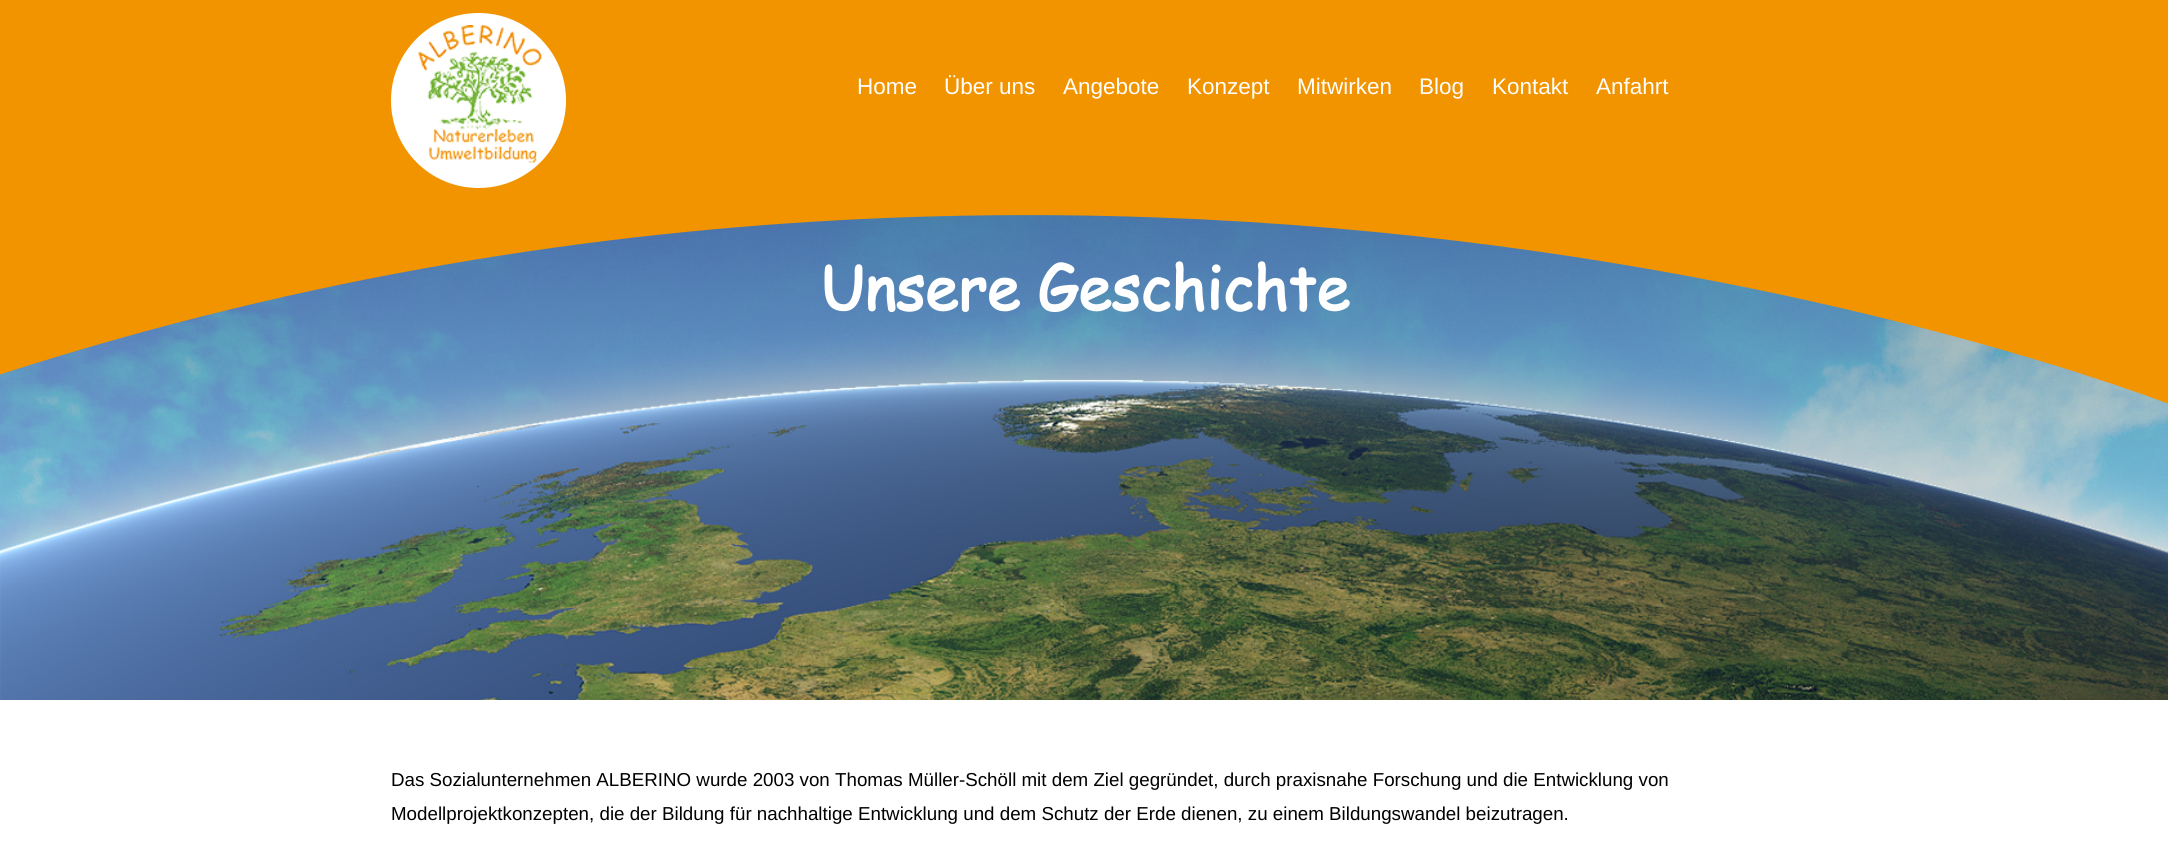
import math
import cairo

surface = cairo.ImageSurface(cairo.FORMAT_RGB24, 2168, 858)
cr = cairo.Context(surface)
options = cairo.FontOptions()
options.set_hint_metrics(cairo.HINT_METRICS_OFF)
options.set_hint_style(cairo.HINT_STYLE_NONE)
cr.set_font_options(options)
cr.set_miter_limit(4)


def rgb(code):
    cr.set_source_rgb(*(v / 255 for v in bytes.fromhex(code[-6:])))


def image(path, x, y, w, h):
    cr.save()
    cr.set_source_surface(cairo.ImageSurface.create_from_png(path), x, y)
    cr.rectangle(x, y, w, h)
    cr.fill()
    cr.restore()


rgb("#ffffff")
cr.paint()
rgb("#f29400")
cr.rectangle(0, 0, 2168, 199)
cr.fill()
rgb("#ffffff")
cr.arc(478.5, 100.5, 87.5, 0, 2 * math.pi)
cr.fill()
image("img/1.png", 418, 25, 124, 138)
image("img/2.png", 0, 215, 2168, 485)
cr.select_font_face("Liberation Sans")
cr.set_font_size(22.5)
for x, y, s in [
    (857, 94, "Home"),
    (944, 94, "Über uns"),
    (1063, 94, "Angebote"),
    (1187, 94, "Konzept"),
    (1297, 94, "Mitwirken"),
    (1419, 94, "Blog"),
    (1492, 94, "Kontakt"),
    (1596, 94, "Anfahrt"),
]:
    cr.move_to(x, y)
    cr.show_text(s)
cr.select_font_face("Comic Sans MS", cairo.FONT_SLANT_NORMAL, cairo.FONT_WEIGHT_BOLD)
cr.set_font_size(60)
cr.move_to(820, 310)
cr.show_text("Unsere Geschichte")
rgb("#f29400")
cr.new_path()
cr.move_to(-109, 199)
cr.line_to(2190, 199)
cr.line_to(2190, 412)
cr.curve_to(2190, 412, 1108, -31, -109, 412)
cr.close_path()
cr.fill()
cr.select_font_face("Liberation Sans")
cr.set_font_size(18.75)
rgb("#000000")
cr.move_to(391, 786)
cr.show_text("Das Sozialunternehmen ALBERINO wurde 2003 von Thomas Müller-Schöll mit dem Ziel gegründet, durch praxisnahe Forschung und die Entwicklung von")
cr.move_to(391, 820)
cr.show_text("Modellprojektkonzepten, die der Bildung für nachhaltige Entwicklung und dem Schutz der Erde dienen, zu einem Bildungswandel beizutragen.")
surface.write_to_png("page.png")
